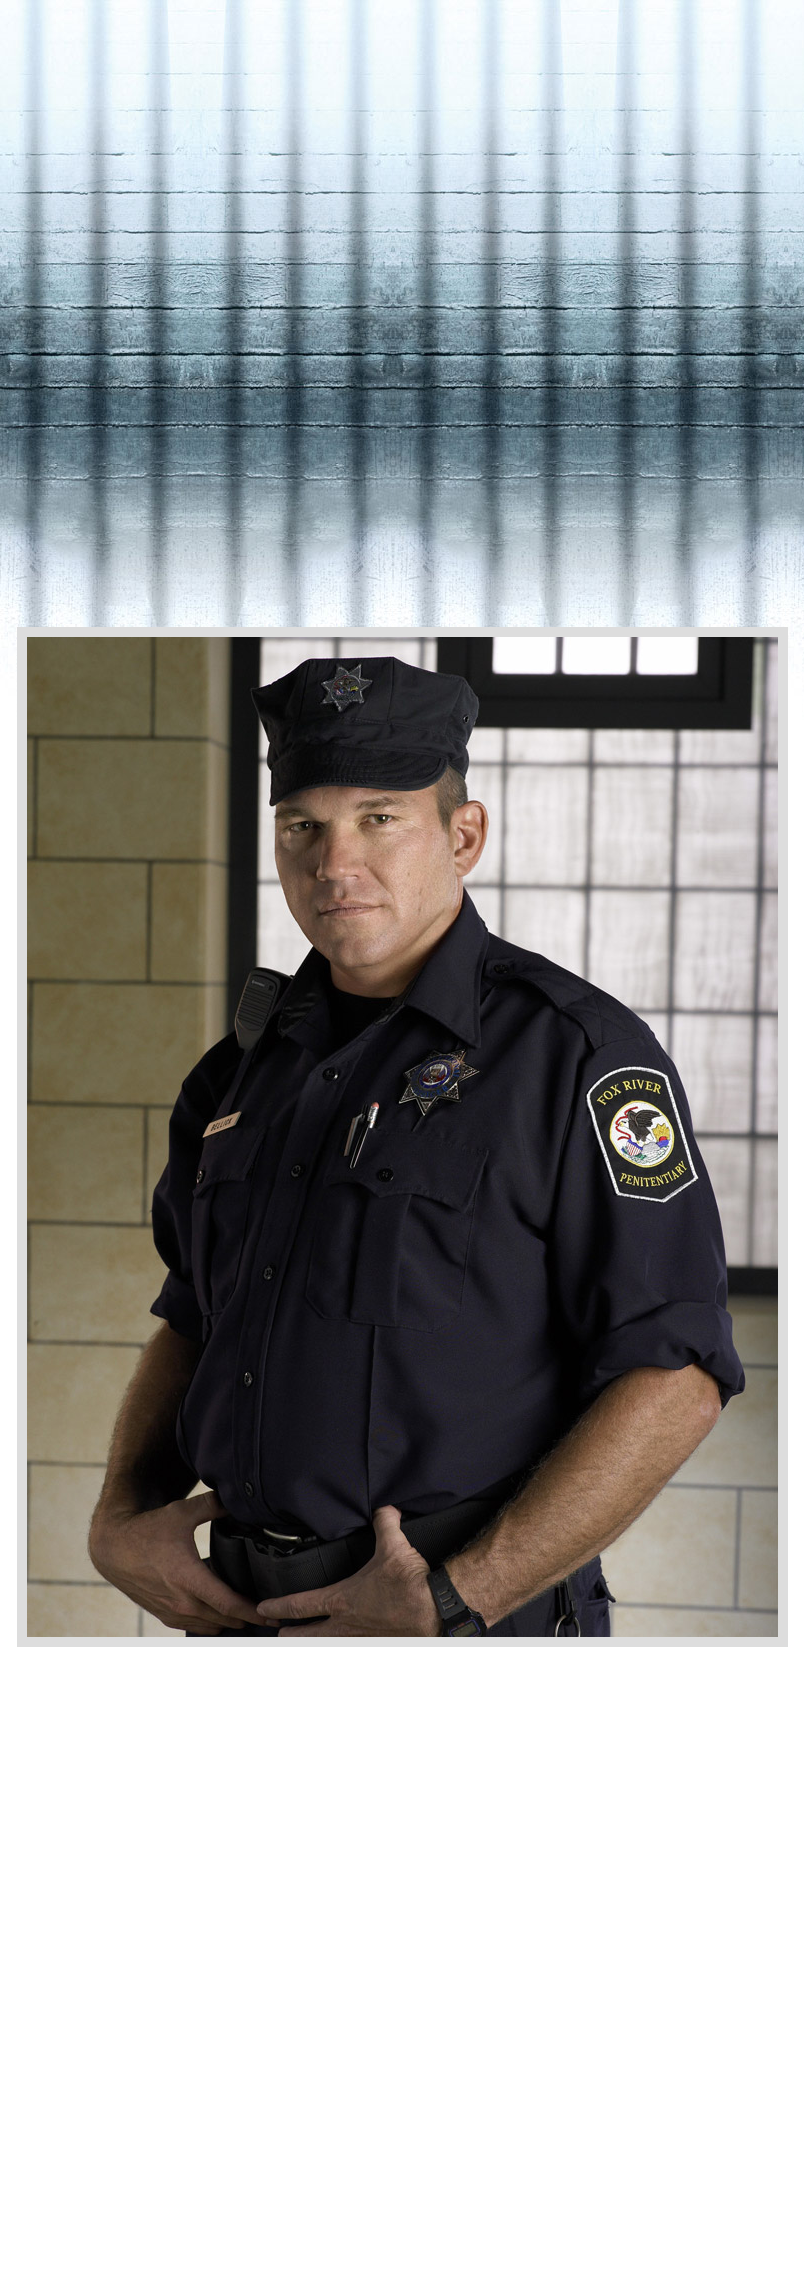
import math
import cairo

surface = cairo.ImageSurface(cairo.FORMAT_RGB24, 804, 2274)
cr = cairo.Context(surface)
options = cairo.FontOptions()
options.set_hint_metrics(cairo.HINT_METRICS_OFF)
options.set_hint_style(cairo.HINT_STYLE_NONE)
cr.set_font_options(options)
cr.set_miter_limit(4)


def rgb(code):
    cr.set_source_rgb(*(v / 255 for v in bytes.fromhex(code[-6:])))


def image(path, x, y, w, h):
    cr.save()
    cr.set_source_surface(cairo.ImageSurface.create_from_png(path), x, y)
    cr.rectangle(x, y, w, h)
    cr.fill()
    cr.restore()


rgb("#ffffff")
cr.paint()
image("img/1.png", 0, 0, 804, 808)
cr.rectangle(22, 632, 761, 1010)
rgb("#dddddd")
cr.set_line_width(10)
cr.stroke()
image("img/2.png", 27, 637, 751, 1000)
surface.write_to_png("page.png")
